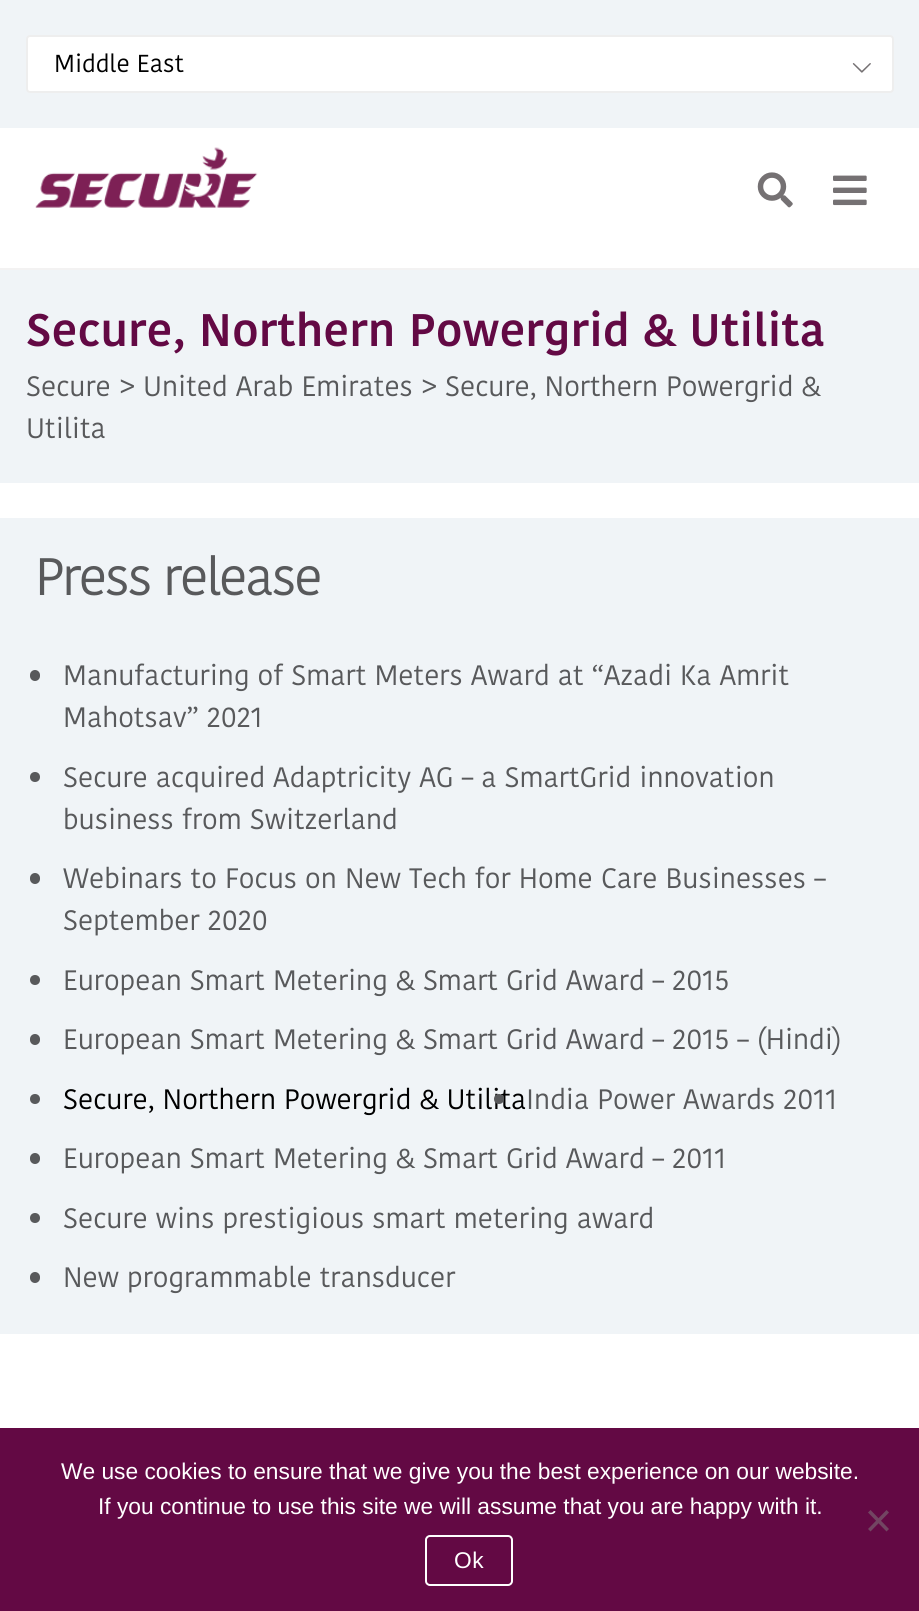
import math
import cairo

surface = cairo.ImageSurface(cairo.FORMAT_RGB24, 919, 1611)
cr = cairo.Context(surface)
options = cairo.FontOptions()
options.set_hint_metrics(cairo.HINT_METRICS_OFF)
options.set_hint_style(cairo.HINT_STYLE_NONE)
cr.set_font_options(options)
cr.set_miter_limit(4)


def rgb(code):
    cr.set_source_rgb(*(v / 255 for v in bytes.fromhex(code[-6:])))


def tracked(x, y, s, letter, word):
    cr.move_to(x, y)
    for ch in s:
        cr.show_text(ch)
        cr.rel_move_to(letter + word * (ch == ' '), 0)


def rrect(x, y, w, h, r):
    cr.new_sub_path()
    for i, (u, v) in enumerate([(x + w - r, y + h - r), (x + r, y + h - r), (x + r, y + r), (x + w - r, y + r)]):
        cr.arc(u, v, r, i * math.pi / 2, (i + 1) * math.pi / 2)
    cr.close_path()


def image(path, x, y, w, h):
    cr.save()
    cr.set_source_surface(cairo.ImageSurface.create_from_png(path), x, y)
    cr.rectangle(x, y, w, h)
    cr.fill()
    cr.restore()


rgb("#ffffff")
cr.paint()
rgb("#f0f4f7")
cr.rectangle(0, 0, 919, 128)
cr.fill()
rgb("#ffffff")
rrect(27, 36, 866, 56, 3)
cr.fill_preserve()
rgb("#eeeeee")
cr.stroke()
image("img/1.png", 852, 63, 19, 10)
rgb("#f3f2f2")
cr.rectangle(0, 268, 919, 2)
cr.fill()
image("img/2.png", 35, 147, 223, 61)
image("img/3.png", 833, 175, 34, 31)
image("img/4.png", 757, 172, 36, 36)
rgb("#f0f4f7")
cr.rectangle(0, 270, 919, 213)
cr.fill()
cr.rectangle(0, 518, 919, 816)
cr.fill()
rgb("#58595b")
rrect(30, 670, 10, 11, 5)
cr.fill()
cr.arc(35, 777, 5, 0, 2 * math.pi)
cr.fill()
rrect(30, 873, 10, 11, 5)
cr.fill()
cr.arc(35, 980, 5, 0, 2 * math.pi)
cr.fill()
rrect(30, 1034, 10, 11, 5)
cr.fill()
cr.arc(35, 1099, 5, 0, 2 * math.pi)
cr.fill()
rrect(30, 1153, 10, 11, 5)
cr.fill()
cr.arc(35, 1218, 5, 0, 2 * math.pi)
cr.fill()
rrect(30, 1272, 10, 11, 5)
cr.fill()
rgb("#630944")
cr.rectangle(0, 1428, 919, 183)
cr.fill()
rgb("#724562")
cr.new_path()
cr.move_to(886.5, 1510)
cr.line_to(889, 1512.5)
cr.line_to(870.5, 1531.5)
cr.line_to(868, 1529)
cr.close_path()
cr.fill()
cr.new_path()
cr.move_to(868, 1512.5)
cr.line_to(870.5, 1510)
cr.line_to(889, 1529)
cr.line_to(886.5, 1531.5)
cr.close_path()
cr.fill()
rrect(426, 1536, 86, 49, 4)
rgb("#ffffff")
cr.stroke()
cr.select_font_face("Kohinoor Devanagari")
cr.set_font_size(24.5)
rgb("#000000")
cr.move_to(54, 72)
cr.show_text("Middle East")
cr.select_font_face("Kohinoor Devanagari SemiBold")
cr.set_font_size(45.5)
rgb("#630944")
tracked(26, 346, "Secure, Northern Powergrid & Utilita", 0.45, 0)
cr.select_font_face("Kohinoor Devanagari")
cr.set_font_size(28)
rgb("#58595b")
for x, y, s in [
    (26, 396, "Secure"),
    (120, 396, ">"),
    (143, 396, "United Arab Emirates"),
    (422, 396, ">"),
    (445, 396, "Secure, Northern Powergrid &"),
    (26, 438, "Utilita"),
]:
    cr.move_to(x, y)
    cr.show_text(s)
cr.set_font_size(52.5)
tracked(35, 595, "Press release", -2.25, 0)
cr.set_font_size(28)
for x, y, s in [
    (63, 685, "Manufacturing of Smart Meters Award at “Azadi Ka Amrit"),
    (63, 727, "Mahotsav” 2021"),
    (63, 787, "Secure acquired Adaptricity AG – a SmartGrid innovation"),
    (63, 829, "business from Switzerland"),
    (63, 888, "Webinars to Focus on New Tech for Home Care Businesses –"),
    (63, 930, "September 2020"),
    (63, 990, "European Smart Metering & Smart Grid Award – 2015"),
    (63, 1049, "European Smart Metering & Smart Grid Award – 2015 – (Hindi)"),
]:
    cr.move_to(x, y)
    cr.show_text(s)
rgb("#000000")
cr.move_to(63, 1109)
cr.show_text("Secure, Northern Powergrid & Utilita")
rgb("#58595b")
cr.new_path()
cr.arc(499, 1099, 5, 0, 2 * math.pi)
cr.fill()
for x, y, s in [
    (526, 1109, "India Power Awards 2011"),
    (63, 1168, "European Smart Metering & Smart Grid Award – 2011"),
    (63, 1228, "Secure wins prestigious smart metering award"),
    (63, 1287, "New programmable transducer"),
]:
    cr.move_to(x, y)
    cr.show_text(s)
cr.select_font_face("Liberation Sans")
cr.set_font_size(22.75)
rgb("#ffffff")
cr.move_to(61, 1479)
cr.show_text("We use cookies to ensure that we give you the best experience on our website.")
cr.move_to(98, 1514)
cr.show_text("If you continue to use this site we will assume that you are happy with it.")
tracked(454, 1568, "Ok", 0.45, 0)
surface.write_to_png("page.png")
